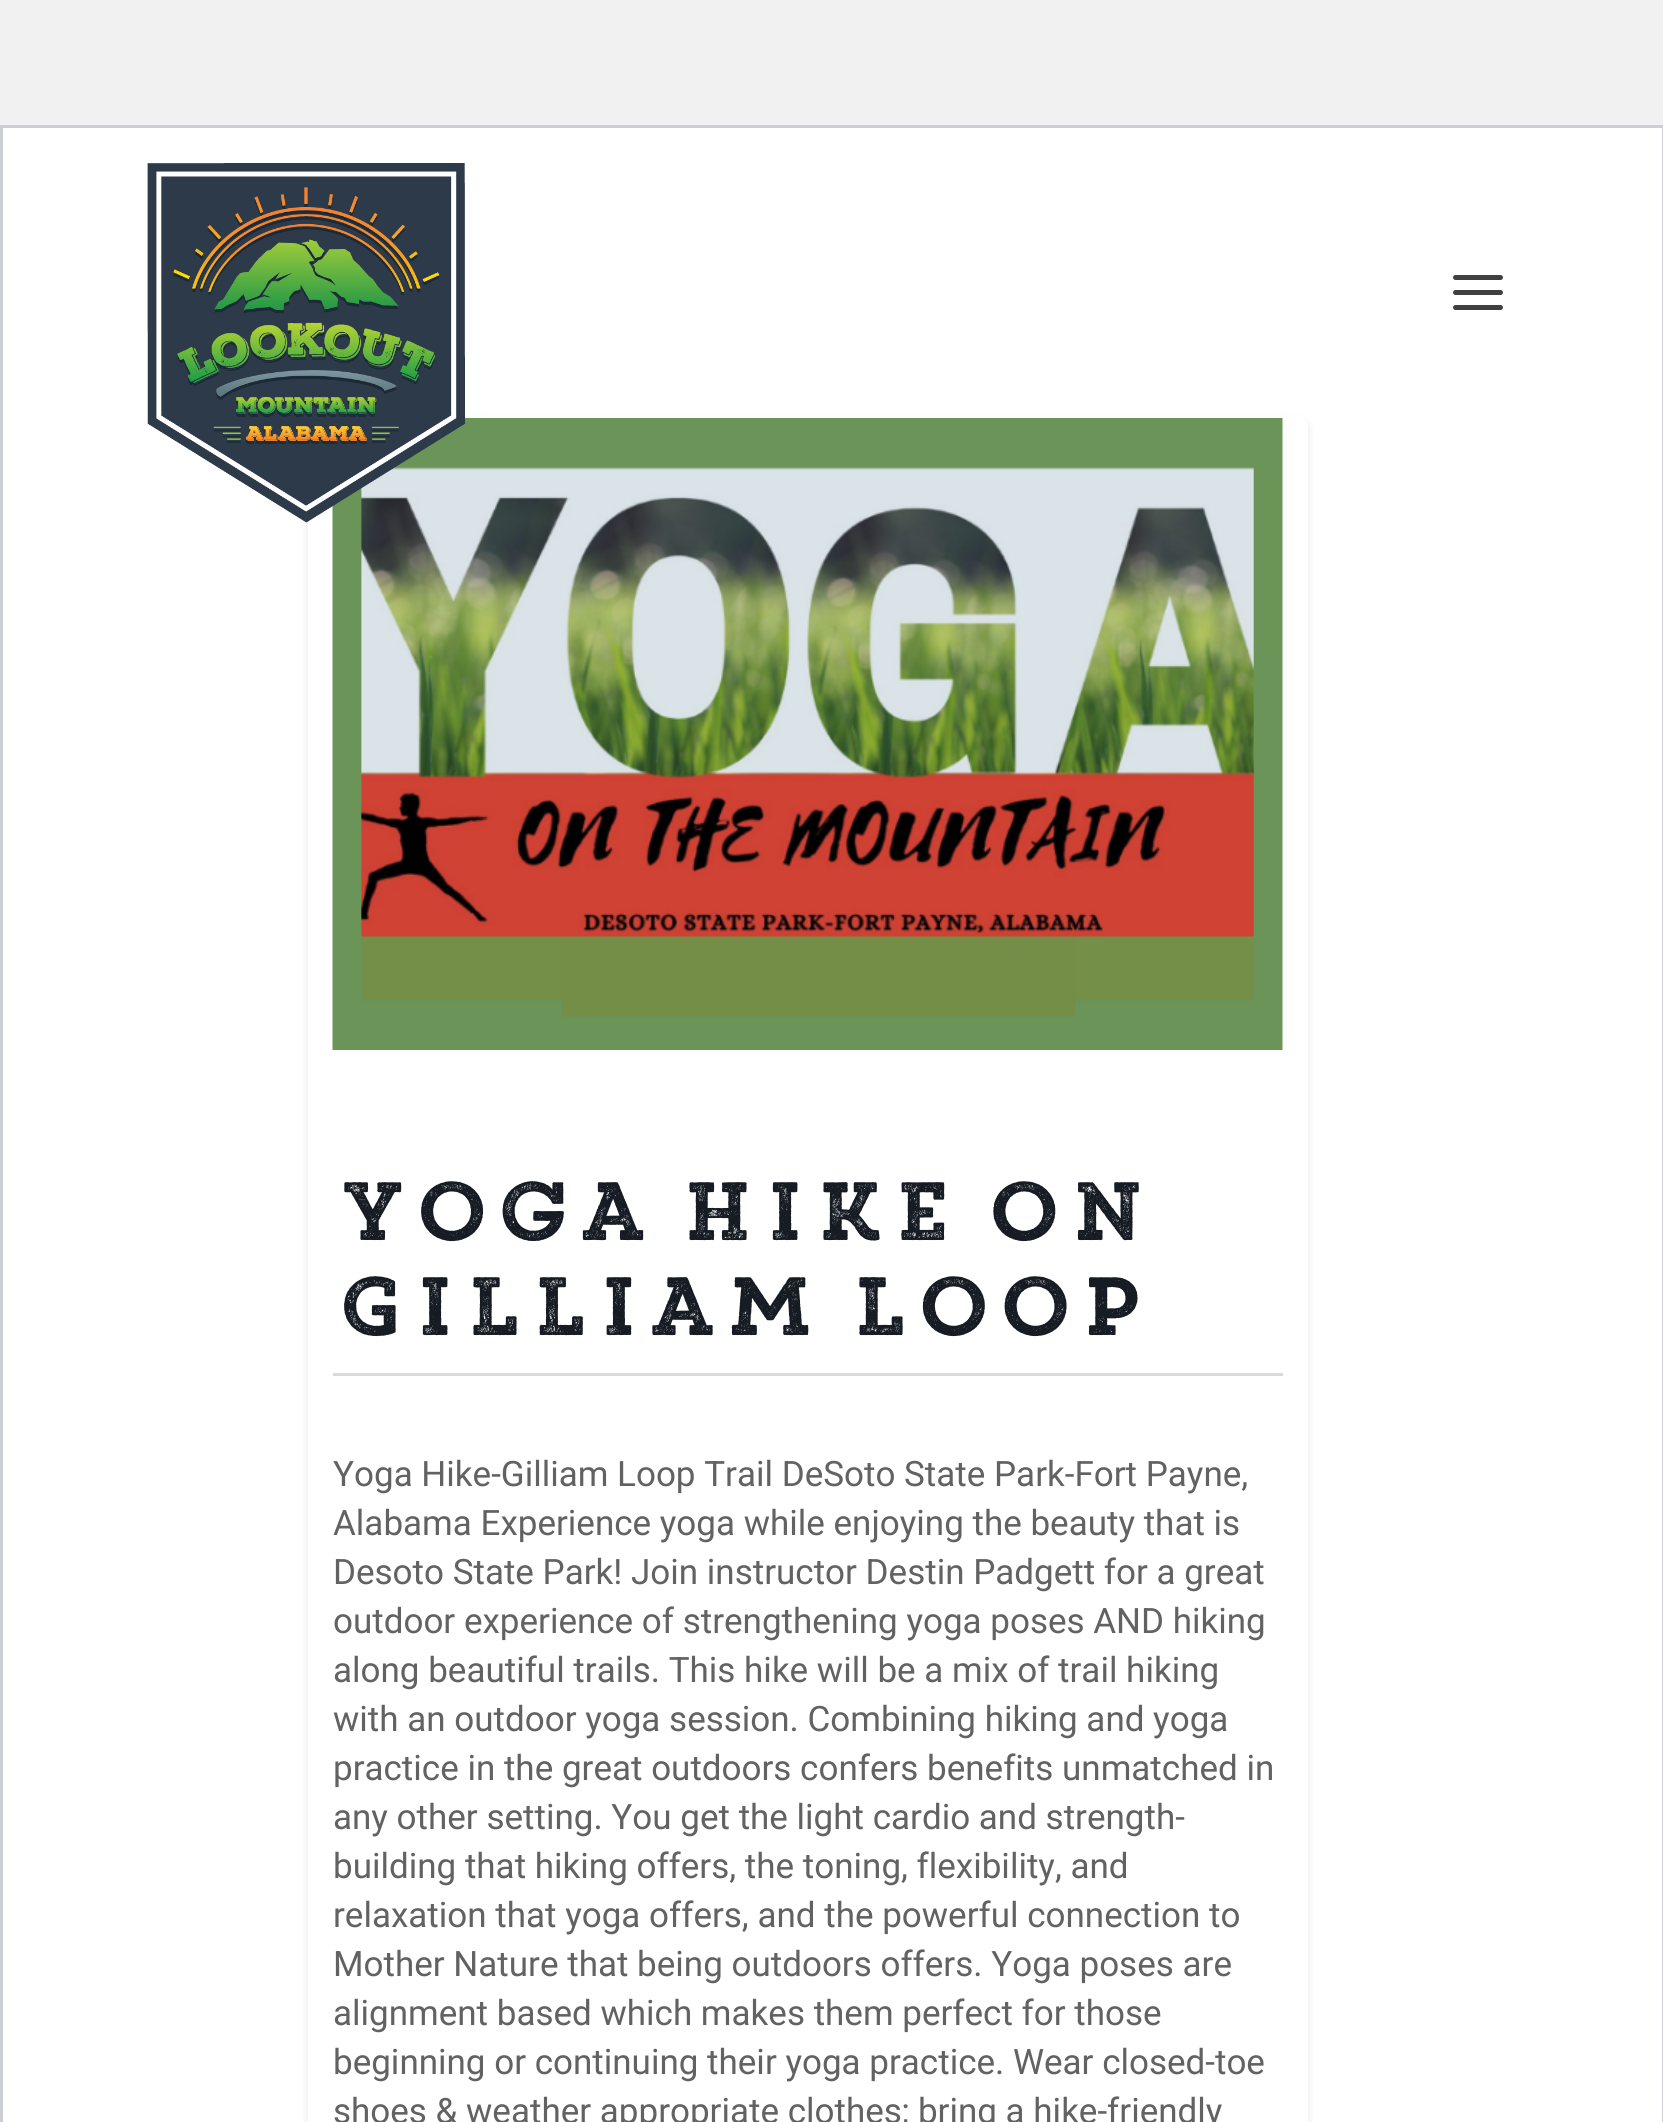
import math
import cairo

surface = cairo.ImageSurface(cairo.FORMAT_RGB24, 1663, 2122)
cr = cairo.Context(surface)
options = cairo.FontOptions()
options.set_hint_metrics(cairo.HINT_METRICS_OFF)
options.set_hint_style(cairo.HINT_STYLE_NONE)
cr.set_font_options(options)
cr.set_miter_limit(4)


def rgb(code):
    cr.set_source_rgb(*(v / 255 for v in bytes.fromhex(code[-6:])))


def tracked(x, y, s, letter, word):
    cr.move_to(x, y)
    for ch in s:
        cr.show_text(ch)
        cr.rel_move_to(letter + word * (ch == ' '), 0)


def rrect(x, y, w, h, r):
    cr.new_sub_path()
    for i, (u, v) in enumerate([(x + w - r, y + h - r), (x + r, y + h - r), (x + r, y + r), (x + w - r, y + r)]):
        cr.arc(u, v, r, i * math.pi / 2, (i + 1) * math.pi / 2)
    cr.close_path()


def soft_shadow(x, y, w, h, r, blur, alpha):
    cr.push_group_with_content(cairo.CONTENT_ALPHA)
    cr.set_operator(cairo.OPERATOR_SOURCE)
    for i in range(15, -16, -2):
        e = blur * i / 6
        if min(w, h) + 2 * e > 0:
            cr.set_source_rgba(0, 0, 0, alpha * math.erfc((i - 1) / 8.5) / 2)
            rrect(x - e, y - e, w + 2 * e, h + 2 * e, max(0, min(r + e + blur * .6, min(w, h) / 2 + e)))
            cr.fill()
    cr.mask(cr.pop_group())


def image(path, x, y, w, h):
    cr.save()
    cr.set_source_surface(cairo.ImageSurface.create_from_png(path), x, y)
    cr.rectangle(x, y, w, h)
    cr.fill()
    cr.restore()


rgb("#f1f1f1")
cr.paint()
rgb("#ffffff")
cr.rectangle(1.5, 126.5, 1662, 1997)
cr.fill_preserve()
rgb("#ccd0d4")
cr.set_line_width(3)
cr.stroke()
rgb("#000000")
soft_shadow(308, 420, 1000, 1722, 8, 4, 0.1)
rgb("#ffffff")
cr.rectangle(310, 415, 996, 3)
cr.fill()
rrect(308, 418, 1000, 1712, 8)
cr.fill()
image("img/2.png", 332, 418, 951, 632)
image("img/1.png", 147, 163, 318, 360)
rgb("#404040")
rrect(1453, 275, 50, 5, 2.5)
cr.fill()
rrect(1453, 290, 50, 5, 2.5)
cr.fill()
rrect(1453, 305, 50, 5, 2.5)
cr.fill()
rgb("#dadada")
cr.rectangle(333, 1373, 950, 3)
cr.fill()
cr.select_font_face("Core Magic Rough")
cr.set_font_size(82.5)
rgb("#171c24")
tracked(333, 1240, "Yoga Hike on", -2.5, 0)
tracked(333, 1335, "Gilliam Loop", -2.5, 0)
cr.select_font_face("Roboto")
cr.set_font_size(35)
rgb("#626262")
for x, y, s in [
    (333, 1486, "Yoga Hike-Gilliam Loop Trail DeSoto State Park-Fort Payne,"),
    (333, 1535, "Alabama Experience yoga while enjoying the beauty that is"),
    (333, 1584, "Desoto State Park! Join instructor Destin Padgett for a great"),
    (333, 1633, "outdoor experience of strengthening yoga poses AND hiking"),
    (333, 1682, "along beautiful trails. This hike will be a mix of trail hiking"),
    (333, 1731, "with an outdoor yoga session. Combining hiking and yoga"),
    (333, 1780, "practice in the great outdoors confers benefits unmatched in"),
    (333, 1829, "any other setting. You get the light cardio and strength-"),
    (333, 1878, "building that hiking offers, the toning, flexibility, and"),
    (333, 1927, "relaxation that yoga offers, and the powerful connection to"),
    (333, 1976, "Mother Nature that being outdoors offers. Yoga poses are"),
    (333, 2025, "alignment based which makes them perfect for those"),
    (333, 2074, "beginning or continuing their yoga practice. Wear closed-toe"),
    (333, 2123, "shoes & weather appropriate clothes; bring a hike-friendly"),
]:
    cr.move_to(x, y)
    cr.show_text(s)
surface.write_to_png("page.png")
